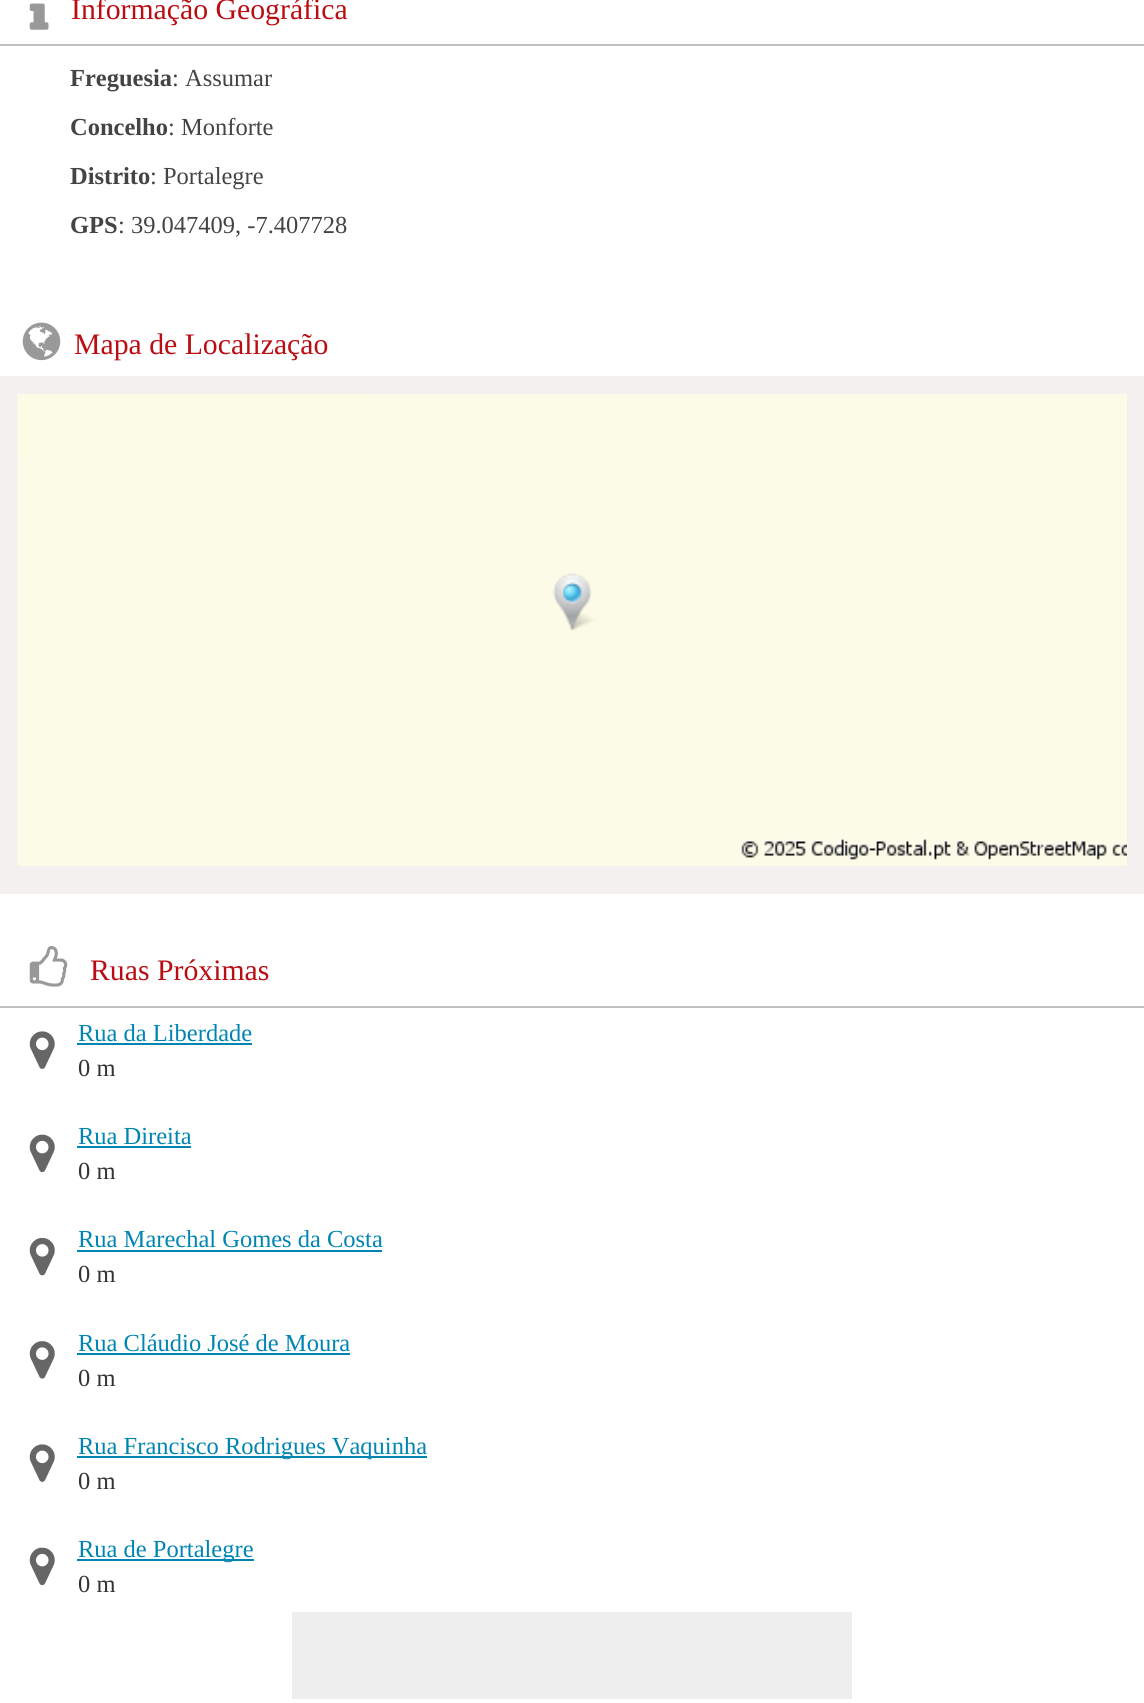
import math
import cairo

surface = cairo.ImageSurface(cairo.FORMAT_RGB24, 1144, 1703)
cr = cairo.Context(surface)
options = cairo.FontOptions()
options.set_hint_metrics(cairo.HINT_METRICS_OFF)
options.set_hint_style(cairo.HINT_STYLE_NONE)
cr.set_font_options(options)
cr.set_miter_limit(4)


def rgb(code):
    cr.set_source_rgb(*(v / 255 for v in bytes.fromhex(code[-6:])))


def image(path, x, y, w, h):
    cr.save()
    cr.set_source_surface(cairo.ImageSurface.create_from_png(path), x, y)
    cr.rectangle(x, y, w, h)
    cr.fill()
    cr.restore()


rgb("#ffffff")
cr.paint()
image("img/1.png", 29, 3, 20, 27)
rgb("#c0c0c0")
cr.rectangle(0, 44, 1144, 2)
cr.fill()
image("img/2.png", 22, 322, 39, 39)
rgb("#f2f1ef")
cr.rectangle(0, 376, 1144, 518)
cr.fill()
image("img/3.png", 17, 394, 1110, 472)
image("img/4.png", 29, 946, 39, 41)
rgb("#c0c0c0")
cr.rectangle(0, 1006, 1144, 2)
cr.fill()
image("img/5.png", 29, 1031, 26, 38)
rgb("#0085b2")
cr.rectangle(77, 1043, 175, 2)
cr.fill()
image("img/6.png", 29, 1134, 26, 39)
cr.rectangle(77, 1146, 114, 2)
cr.fill()
image("img/7.png", 29, 1237, 26, 39)
cr.rectangle(77, 1250, 305, 2)
cr.fill()
image("img/8.png", 29, 1341, 26, 38)
cr.rectangle(77, 1353, 273, 2)
cr.fill()
image("img/5.png", 29, 1444, 26, 38)
cr.rectangle(77, 1456, 350, 2)
cr.fill()
image("img/6.png", 29, 1547, 26, 39)
cr.rectangle(77, 1559, 177, 2)
cr.fill()
rgb("#eeeeee")
cr.rectangle(292, 1612, 560, 87)
cr.fill()
cr.select_font_face("Liberation Serif")
cr.set_font_size(29.75)
rgb("#ba0d13")
cr.move_to(71, 19)
cr.show_text("Informação Geográfica")
cr.select_font_face("Liberation Serif", cairo.FONT_SLANT_NORMAL, cairo.FONT_WEIGHT_BOLD)
cr.set_font_size(24.5)
rgb("#444444")
cr.move_to(70, 86)
cr.show_text("Freguesia")
cr.select_font_face("Liberation Serif")
cr.move_to(172, 86)
cr.show_text(": Assumar")
cr.select_font_face("Liberation Serif", cairo.FONT_SLANT_NORMAL, cairo.FONT_WEIGHT_BOLD)
cr.move_to(70, 135)
cr.show_text("Concelho")
cr.select_font_face("Liberation Serif")
cr.move_to(168, 135)
cr.show_text(": Monforte")
cr.select_font_face("Liberation Serif", cairo.FONT_SLANT_NORMAL, cairo.FONT_WEIGHT_BOLD)
cr.move_to(70, 184)
cr.show_text("Distrito")
cr.select_font_face("Liberation Serif")
cr.move_to(150, 184)
cr.show_text(": Portalegre")
cr.select_font_face("Liberation Serif", cairo.FONT_SLANT_NORMAL, cairo.FONT_WEIGHT_BOLD)
cr.move_to(70, 233)
cr.show_text("GPS")
cr.select_font_face("Liberation Serif")
cr.move_to(118, 233)
cr.show_text(": 39.047409, -7.407728")
cr.set_font_size(29.75)
rgb("#ba0d13")
cr.move_to(74, 354)
cr.show_text("Mapa de Localização")
cr.move_to(90, 980)
cr.show_text("Ruas Próximas")
cr.set_font_size(24.5)
rgb("#0085b2")
cr.move_to(78, 1041)
cr.show_text("Rua da Liberdade")
rgb("#333333")
cr.move_to(78, 1076)
cr.show_text("0 m")
rgb("#0085b2")
cr.move_to(78, 1144)
cr.show_text("Rua Direita")
rgb("#333333")
cr.move_to(78, 1179)
cr.show_text("0 m")
rgb("#0085b2")
cr.move_to(78, 1247)
cr.show_text("Rua Marechal Gomes da Costa")
rgb("#333333")
cr.move_to(78, 1282)
cr.show_text("0 m")
rgb("#0085b2")
cr.move_to(78, 1351)
cr.show_text("Rua Cláudio José de Moura")
rgb("#333333")
cr.move_to(78, 1386)
cr.show_text("0 m")
rgb("#0085b2")
cr.move_to(78, 1454)
cr.show_text("Rua Francisco Rodrigues Vaquinha")
rgb("#333333")
cr.move_to(78, 1489)
cr.show_text("0 m")
rgb("#0085b2")
cr.move_to(78, 1557)
cr.show_text("Rua de Portalegre")
rgb("#333333")
cr.move_to(78, 1592)
cr.show_text("0 m")
surface.write_to_png("page.png")
